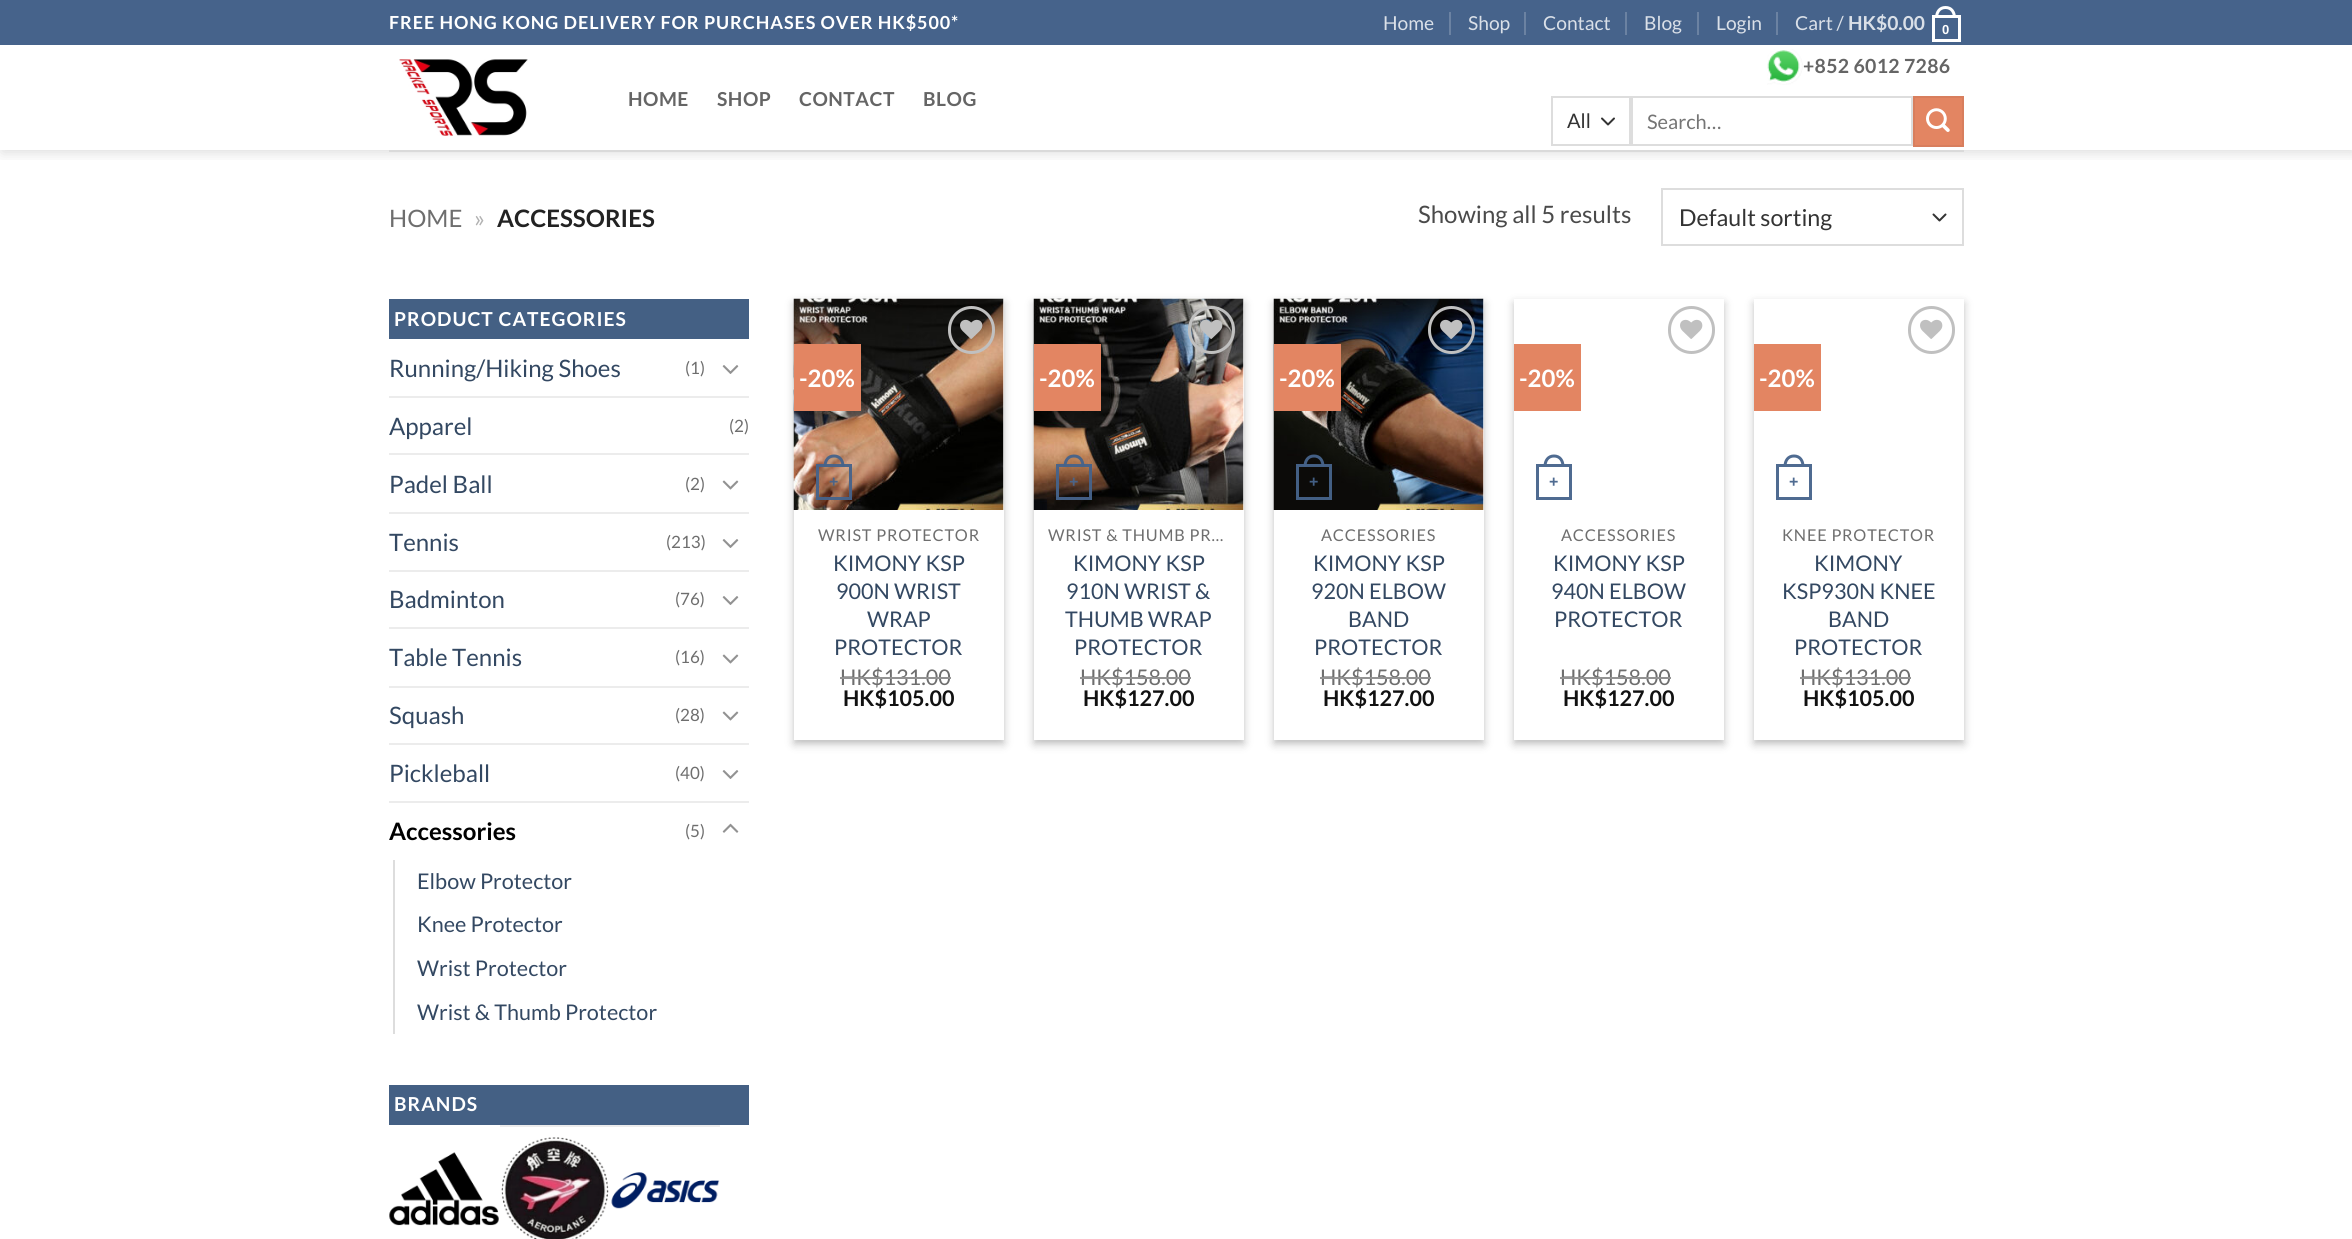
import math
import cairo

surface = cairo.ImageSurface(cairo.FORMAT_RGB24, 2352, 1239)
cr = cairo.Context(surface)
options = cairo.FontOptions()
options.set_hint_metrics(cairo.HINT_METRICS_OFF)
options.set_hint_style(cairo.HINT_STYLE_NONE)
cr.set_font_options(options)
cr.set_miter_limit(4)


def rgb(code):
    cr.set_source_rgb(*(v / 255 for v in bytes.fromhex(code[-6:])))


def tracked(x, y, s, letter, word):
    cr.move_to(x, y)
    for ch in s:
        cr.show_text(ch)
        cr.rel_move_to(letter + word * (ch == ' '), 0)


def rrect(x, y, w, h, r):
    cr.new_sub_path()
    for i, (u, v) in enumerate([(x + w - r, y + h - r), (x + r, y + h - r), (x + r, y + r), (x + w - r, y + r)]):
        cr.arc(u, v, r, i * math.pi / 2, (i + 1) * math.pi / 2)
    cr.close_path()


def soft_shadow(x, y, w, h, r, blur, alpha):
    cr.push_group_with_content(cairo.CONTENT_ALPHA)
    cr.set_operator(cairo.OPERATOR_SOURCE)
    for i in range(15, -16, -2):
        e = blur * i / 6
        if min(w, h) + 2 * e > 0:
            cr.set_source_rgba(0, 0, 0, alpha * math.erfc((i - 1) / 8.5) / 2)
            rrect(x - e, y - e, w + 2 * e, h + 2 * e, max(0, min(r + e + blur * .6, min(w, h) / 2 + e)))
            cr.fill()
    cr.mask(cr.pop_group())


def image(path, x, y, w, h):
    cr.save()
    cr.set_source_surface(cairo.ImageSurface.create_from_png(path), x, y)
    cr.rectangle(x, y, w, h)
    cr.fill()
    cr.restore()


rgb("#ffffff")
cr.paint()
cr.save()
cr.rectangle(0, 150, 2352, 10)
cr.clip()
rgb("#000000")
soft_shadow(2, 2, 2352, 150, 0, 7.5, 0.15)
cr.restore()
for x, y, w, h, color in [
    (0, 0, 2352, 45, "#46638b"),
    (1449, 12, 2, 23, "#6b82a2"),
    (1524, 12, 2, 23, "#6b82a2"),
    (1625, 12, 2, 23, "#6b82a2"),
    (1697, 12, 2, 23, "#6b82a2"),
    (1776, 12, 2, 23, "#6b82a2"),
]:
    rgb(color)
    cr.rectangle(x, y, w, h)
    cr.fill()
cr.rectangle(1933.5, 16.5, 26, 24)
rgb("#ffffff")
cr.set_line_width(3)
cr.stroke()
cr.set_fill_rule(cairo.FILL_RULE_EVEN_ODD)
cr.new_path()
cr.move_to(1945.5, 6)
cr.curve_to(1952.5, 6, 1956, 11.5, 1956, 18)
cr.line_to(1935, 18)
cr.curve_to(1935, 11.5, 1938.5, 6, 1945.5, 6)
cr.close_path()
cr.move_to(1945.5, 9)
cr.curve_to(1951, 9, 1953, 13.5, 1953, 18)
cr.line_to(1938, 18)
cr.curve_to(1938, 13.5, 1940, 9, 1945.5, 9)
cr.close_path()
cr.fill()
image("img/1.png", 399, 59, 129, 77)
image("img/2.png", 1767, 49, 36, 36)
cr.new_path()
cr.move_to(1602, 118.5)
cr.line_to(1608, 124.5)
cr.line_to(1614, 118.5)
rgb("#333333")
cr.set_line_width(2)
cr.set_line_cap(cairo.LINE_CAP_ROUND)
cr.set_line_join(cairo.LINE_JOIN_ROUND)
cr.stroke()
cr.rectangle(1552, 97, 78, 48)
rgb("#dddddd")
cr.set_line_cap(cairo.LINE_CAP_BUTT)
cr.set_line_join(cairo.LINE_JOIN_MITER)
cr.stroke()
cr.rectangle(1632, 97, 280, 48)
cr.stroke()
rgb("#e38562")
cr.rectangle(1914, 97, 49, 49)
cr.fill_preserve()
rgb("#d87e5d")
cr.stroke()
image("img/3.png", 1926, 108, 24, 24)
rgb("#dadada")
cr.rectangle(389, 150, 1575, 2)
cr.fill()
cr.new_path()
cr.move_to(1933.5, 214.5)
cr.line_to(1939.5, 220.5)
cr.line_to(1945.5, 214.5)
rgb("#333333")
cr.set_line_cap(cairo.LINE_CAP_ROUND)
cr.set_line_join(cairo.LINE_JOIN_ROUND)
cr.stroke()
cr.rectangle(1662, 189, 301, 56)
rgb("#dddddd")
cr.set_line_cap(cairo.LINE_CAP_BUTT)
cr.set_line_join(cairo.LINE_JOIN_MITER)
cr.stroke()
rgb("#446084")
cr.rectangle(389, 299, 360, 40)
cr.fill()
image("img/4.png", 722, 365, 17, 9)
rgb("#ececec")
cr.rectangle(389, 396, 360, 2)
cr.fill()
cr.rectangle(389, 453, 360, 2)
cr.fill()
image("img/5.png", 722, 480, 17, 10)
cr.rectangle(389, 512, 360, 2)
cr.fill()
image("img/4.png", 722, 539, 17, 9)
cr.rectangle(389, 570, 360, 2)
cr.fill()
image("img/4.png", 722, 596, 17, 9)
cr.rectangle(389, 627, 360, 2)
cr.fill()
image("img/5.png", 722, 654, 17, 10)
cr.rectangle(389, 686, 360, 2)
cr.fill()
image("img/5.png", 722, 711, 17, 10)
cr.rectangle(389, 743, 360, 2)
cr.fill()
image("img/4.png", 722, 770, 17, 9)
cr.rectangle(389, 801, 360, 2)
cr.fill()
image("img/6.png", 722, 823, 17, 10)
rgb("#dddddd")
cr.rectangle(393, 860, 2, 174)
cr.fill()
rgb("#446084")
cr.rectangle(389, 1085, 360, 40)
cr.fill()
image("img/7.png", 389, 1152, 110, 74)
rgb("#ececec")
cr.rectangle(500, 1125, 220, 2)
cr.fill()
image("img/8.png", 501, 1137, 108, 102)
image("img/9.png", 611, 1172, 109, 37)
rgb("#000000")
soft_shadow(794, 303, 210, 441, 0, 4.5, 0.23)
soft_shadow(800, 309, 198, 429, 0, 4.5, 0.16)
rgb("#ffffff")
cr.rectangle(794, 299, 210, 441)
cr.fill()
image("img/10.png", 793, 298, 211, 212)
rgb("#e38562")
cr.rectangle(794, 344, 67, 67)
cr.fill()
rrect(949.5, 307.5, 44, 45, 22)
rgb("#c0c0c0")
cr.set_line_width(3)
cr.stroke()
image("img/11.png", 960, 319, 23, 20)
cr.rectangle(817.5, 465.5, 33, 33)
cr.set_source_rgba(0.275, 0.388, 0.545, 0.95)
cr.stroke()
cr.new_path()
cr.move_to(834, 454.5)
cr.curve_to(841, 454.5, 844.5, 460, 844.5, 466.5)
cr.line_to(823.5, 466.5)
cr.curve_to(823.5, 460, 827, 454.5, 834, 454.5)
cr.close_path()
cr.move_to(834, 457.5)
cr.curve_to(839.5, 457.5, 841.5, 462, 841.5, 466.5)
cr.line_to(826.5, 466.5)
cr.curve_to(826.5, 462, 828.5, 457.5, 834, 457.5)
cr.close_path()
cr.fill()
rgb("#000000")
soft_shadow(1034, 303, 210, 441, 0, 4.5, 0.23)
soft_shadow(1040, 309, 198, 429, 0, 4.5, 0.16)
rgb("#ffffff")
cr.rectangle(1034, 299, 210, 441)
cr.fill()
image("img/12.png", 1033, 298, 211, 212)
rgb("#e38562")
cr.rectangle(1034, 344, 67, 67)
cr.fill()
rrect(1189.5, 307.5, 44, 45, 22)
rgb("#c0c0c0")
cr.stroke()
image("img/13.png", 1200, 319, 23, 20)
cr.rectangle(1057.5, 465.5, 33, 33)
cr.set_source_rgba(0.275, 0.388, 0.545, 0.95)
cr.stroke()
cr.new_path()
cr.move_to(1074, 454.5)
cr.curve_to(1081, 454.5, 1084.5, 460, 1084.5, 466.5)
cr.line_to(1063.5, 466.5)
cr.curve_to(1063.5, 460, 1067, 454.5, 1074, 454.5)
cr.close_path()
cr.move_to(1074, 457.5)
cr.curve_to(1079.5, 457.5, 1081.5, 462, 1081.5, 466.5)
cr.line_to(1066.5, 466.5)
cr.curve_to(1066.5, 462, 1068.5, 457.5, 1074, 457.5)
cr.close_path()
cr.fill()
rgb("#000000")
soft_shadow(1274, 303, 210, 441, 0, 4.5, 0.23)
soft_shadow(1280, 309, 198, 429, 0, 4.5, 0.16)
rgb("#ffffff")
cr.rectangle(1274, 299, 210, 441)
cr.fill()
image("img/14.png", 1273, 298, 211, 212)
rgb("#e38562")
cr.rectangle(1274, 344, 67, 67)
cr.fill()
rrect(1429.5, 307.5, 44, 45, 22)
rgb("#c0c0c0")
cr.stroke()
image("img/15.png", 1440, 319, 23, 20)
cr.rectangle(1297.5, 465.5, 33, 33)
cr.set_source_rgba(0.275, 0.388, 0.545, 0.95)
cr.stroke()
cr.new_path()
cr.move_to(1314, 454.5)
cr.curve_to(1321, 454.5, 1324.5, 460, 1324.5, 466.5)
cr.line_to(1303.5, 466.5)
cr.curve_to(1303.5, 460, 1307, 454.5, 1314, 454.5)
cr.close_path()
cr.move_to(1314, 457.5)
cr.curve_to(1319.5, 457.5, 1321.5, 462, 1321.5, 466.5)
cr.line_to(1306.5, 466.5)
cr.curve_to(1306.5, 462, 1308.5, 457.5, 1314, 457.5)
cr.close_path()
cr.fill()
rgb("#000000")
soft_shadow(1514, 303, 210, 441, 0, 4.5, 0.23)
soft_shadow(1520, 309, 198, 429, 0, 4.5, 0.16)
rgb("#ffffff")
cr.rectangle(1514, 299, 210, 441)
cr.fill()
rgb("#e38562")
cr.rectangle(1514, 344, 67, 67)
cr.fill()
rrect(1669.5, 307.5, 44, 45, 22)
rgb("#c0c0c0")
cr.stroke()
image("img/16.png", 1680, 319, 23, 20)
cr.rectangle(1537.5, 465.5, 33, 33)
rgb("#4f6b91")
cr.stroke()
cr.new_path()
cr.move_to(1554, 454.5)
cr.curve_to(1561, 454.5, 1564.5, 460, 1564.5, 466.5)
cr.line_to(1543.5, 466.5)
cr.curve_to(1543.5, 460, 1547, 454.5, 1554, 454.5)
cr.close_path()
cr.move_to(1554, 457.5)
cr.curve_to(1559.5, 457.5, 1561.5, 462, 1561.5, 466.5)
cr.line_to(1546.5, 466.5)
cr.curve_to(1546.5, 462, 1548.5, 457.5, 1554, 457.5)
cr.close_path()
cr.fill()
rgb("#000000")
soft_shadow(1754, 303, 210, 441, 0, 4.5, 0.23)
soft_shadow(1760, 309, 198, 429, 0, 4.5, 0.16)
rgb("#ffffff")
cr.rectangle(1754, 299, 210, 441)
cr.fill()
rgb("#e38562")
cr.rectangle(1754, 344, 67, 67)
cr.fill()
rrect(1909.5, 307.5, 44, 45, 22)
rgb("#c0c0c0")
cr.stroke()
image("img/16.png", 1920, 319, 23, 20)
cr.rectangle(1777.5, 465.5, 33, 33)
rgb("#4f6b91")
cr.stroke()
cr.new_path()
cr.move_to(1794, 454.5)
cr.curve_to(1801, 454.5, 1804.5, 460, 1804.5, 466.5)
cr.line_to(1783.5, 466.5)
cr.curve_to(1783.5, 460, 1787, 454.5, 1794, 454.5)
cr.close_path()
cr.move_to(1794, 457.5)
cr.curve_to(1799.5, 457.5, 1801.5, 462, 1801.5, 466.5)
cr.line_to(1786.5, 466.5)
cr.curve_to(1786.5, 462, 1788.5, 457.5, 1794, 457.5)
cr.close_path()
cr.fill()
cr.select_font_face("Lato", cairo.FONT_SLANT_NORMAL, cairo.FONT_WEIGHT_BOLD)
cr.set_font_size(18)
rgb("#ffffff")
tracked(389, 29, "FREE HONG KONG DELIVERY FOR PURCHASES OVER HK$500*", 0.9, 0)
cr.select_font_face("Lato")
cr.set_font_size(19.25)
rgb("#dae0e8")
for x, y, s in [
    (1383, 30, "Home"),
    (1468, 30, "Shop"),
    (1543, 30, "Contact"),
    (1644, 30, "Blog"),
    (1716, 30, "Login"),
    (1795, 30, "Cart /"),
]:
    cr.move_to(x, y)
    cr.show_text(s)
cr.select_font_face("Lato", cairo.FONT_SLANT_NORMAL, cairo.FONT_WEIGHT_BOLD)
cr.move_to(1848, 30)
cr.show_text("HK$0.00")
cr.select_font_face("Liberation Sans", cairo.FONT_SLANT_NORMAL, cairo.FONT_WEIGHT_BOLD)
cr.set_font_size(13)
rgb("#ffffff")
cr.move_to(1942, 34)
cr.show_text("0")
cr.select_font_face("Lato", cairo.FONT_SLANT_NORMAL, cairo.FONT_WEIGHT_BOLD)
cr.set_font_size(19.25)
rgb("#656565")
for x, y, s in [
    (628, 106, "HOME"),
    (717, 106, "SHOP"),
    (799, 106, "CONTACT"),
    (923, 106, "BLOG"),
]:
    tracked(x, y, s, 0.5, 0)
cr.set_font_size(19.5)
tracked(1803, 73, "+852 6012 7286", 0.3, 0)
cr.select_font_face("Lato")
cr.set_font_size(20)
rgb("#333333")
cr.move_to(1567, 128)
cr.show_text("All")
rgb("#757575")
cr.move_to(1647, 129)
cr.show_text("Search…")
cr.set_font_size(24)
rgb("#6e6e6e")
cr.move_to(389, 227)
cr.show_text("HOME")
rgb("#b2b2b2")
cr.move_to(474, 227)
cr.show_text("»")
cr.select_font_face("Lato", cairo.FONT_SLANT_NORMAL, cairo.FONT_WEIGHT_BOLD)
rgb("#222222")
cr.move_to(497, 227)
cr.show_text("ACCESSORIES")
cr.select_font_face("Lato")
rgb("#4a4a4a")
cr.move_to(1418, 223)
cr.show_text("Showing all 5 results")
cr.set_font_size(23.25)
rgb("#333333")
cr.move_to(1679, 226)
cr.show_text("Default sorting")
cr.select_font_face("Lato", cairo.FONT_SLANT_NORMAL, cairo.FONT_WEIGHT_BOLD)
cr.set_font_size(19.25)
rgb("#ffffff")
tracked(394, 326, "PRODUCT CATEGORIES", 1, 0)
cr.select_font_face("Lato")
cr.set_font_size(24)
rgb("#334862")
cr.move_to(389, 377)
cr.show_text("Running/Hiking Shoes")
cr.set_font_size(17)
rgb("#6e6e6e")
cr.move_to(685, 374)
cr.show_text("(1)")
cr.set_font_size(24)
rgb("#334862")
cr.move_to(389, 435)
cr.show_text("Apparel")
cr.set_font_size(17)
rgb("#6e6e6e")
cr.move_to(729, 432)
cr.show_text("(2)")
cr.set_font_size(24)
rgb("#334862")
cr.move_to(389, 493)
cr.show_text("Padel Ball")
cr.set_font_size(17)
rgb("#6e6e6e")
cr.move_to(685, 490)
cr.show_text("(2)")
cr.set_font_size(24)
rgb("#334862")
cr.move_to(389, 551)
cr.show_text("Tennis")
cr.set_font_size(17)
rgb("#6e6e6e")
cr.move_to(666, 548)
cr.show_text("(213)")
cr.set_font_size(24)
rgb("#334862")
cr.move_to(389, 608)
cr.show_text("Badminton")
cr.set_font_size(17)
rgb("#6e6e6e")
cr.move_to(675, 605)
cr.show_text("(76)")
cr.set_font_size(24)
rgb("#334862")
cr.move_to(389, 666)
cr.show_text("Table Tennis")
cr.set_font_size(17)
rgb("#6e6e6e")
cr.move_to(675, 663)
cr.show_text("(16)")
cr.set_font_size(24)
rgb("#334862")
cr.move_to(389, 724)
cr.show_text("Squash")
cr.set_font_size(17)
rgb("#6e6e6e")
cr.move_to(675, 721)
cr.show_text("(28)")
cr.set_font_size(24)
rgb("#334862")
cr.move_to(389, 782)
cr.show_text("Pickleball")
cr.set_font_size(17)
rgb("#6e6e6e")
cr.move_to(675, 779)
cr.show_text("(40)")
cr.select_font_face("Lato", cairo.FONT_SLANT_NORMAL, cairo.FONT_WEIGHT_BOLD)
cr.set_font_size(24)
rgb("#000000")
cr.move_to(389, 840)
cr.show_text("Accessories")
cr.select_font_face("Lato")
cr.set_font_size(17)
rgb("#6e6e6e")
cr.move_to(685, 837)
cr.show_text("(5)")
cr.set_font_size(21.6)
rgb("#334862")
for x, y, s in [
    (417, 889, "Elbow Protector"),
    (417, 932, "Knee Protector"),
    (417, 976, "Wrist Protector"),
    (417, 1020, "Wrist & Thumb Protector"),
]:
    cr.move_to(x, y)
    cr.show_text(s)
cr.select_font_face("Lato", cairo.FONT_SLANT_NORMAL, cairo.FONT_WEIGHT_BOLD)
cr.set_font_size(19.25)
rgb("#ffffff")
tracked(394, 1111, "BRANDS", 1, 0)
cr.set_font_size(24)
cr.move_to(799, 387)
cr.show_text("-20%")
cr.select_font_face("Liberation Sans", cairo.FONT_SLANT_NORMAL, cairo.FONT_WEIGHT_BOLD)
cr.set_font_size(16)
rgb("#4b6488")
cr.move_to(829, 487)
cr.show_text("+")
cr.select_font_face("Lato")
cr.set_font_size(16.25)
rgb("#6e6e6e")
tracked(818, 541, "WRIST PROTECTOR", 0.8, 0)
cr.set_font_size(21.6)
rgb("#334862")
for x, y, s in [
    (833, 571, "KIMONY KSP"),
    (836, 599, "900N WRIST"),
    (867, 627, "WRAP"),
    (834, 655, "PROTECTOR"),
]:
    cr.move_to(x, y)
    cr.show_text(s)
rgb("#6e6e6e")
cr.move_to(840, 685)
cr.show_text("HK$131.00")
rgb("#929292")
cr.rectangle(840, 677, 111, 2)
cr.fill()
cr.select_font_face("Lato", cairo.FONT_SLANT_NORMAL, cairo.FONT_WEIGHT_BOLD)
rgb("#111111")
cr.move_to(843, 706)
cr.show_text("HK$105.00")
cr.set_font_size(24)
rgb("#ffffff")
cr.move_to(1039, 387)
cr.show_text("-20%")
cr.select_font_face("Liberation Sans", cairo.FONT_SLANT_NORMAL, cairo.FONT_WEIGHT_BOLD)
cr.set_font_size(16)
rgb("#4b6488")
cr.move_to(1069, 487)
cr.show_text("+")
cr.select_font_face("Lato")
cr.set_font_size(16.25)
rgb("#6e6e6e")
tracked(1048, 541, "WRIST & THUMB PR…", 0.8, 0)
cr.set_font_size(21.6)
rgb("#334862")
for x, y, s in [
    (1073, 571, "KIMONY KSP"),
    (1066, 599, "910N WRIST &"),
    (1065, 627, "THUMB WRAP"),
    (1074, 655, "PROTECTOR"),
]:
    cr.move_to(x, y)
    cr.show_text(s)
rgb("#6e6e6e")
cr.move_to(1080, 685)
cr.show_text("HK$158.00")
rgb("#929292")
cr.rectangle(1080, 677, 111, 2)
cr.fill()
cr.select_font_face("Lato", cairo.FONT_SLANT_NORMAL, cairo.FONT_WEIGHT_BOLD)
rgb("#111111")
cr.move_to(1083, 706)
cr.show_text("HK$127.00")
cr.set_font_size(24)
rgb("#ffffff")
cr.move_to(1279, 387)
cr.show_text("-20%")
cr.select_font_face("Liberation Sans", cairo.FONT_SLANT_NORMAL, cairo.FONT_WEIGHT_BOLD)
cr.set_font_size(16)
rgb("#435f85")
cr.move_to(1309, 487)
cr.show_text("+")
cr.select_font_face("Lato")
cr.set_font_size(16.25)
rgb("#6e6e6e")
tracked(1321, 541, "ACCESSORIES", 0.8, 0)
cr.set_font_size(21.6)
rgb("#334862")
for x, y, s in [
    (1313, 571, "KIMONY KSP"),
    (1311, 599, "920N ELBOW"),
    (1348, 627, "BAND"),
    (1314, 655, "PROTECTOR"),
]:
    cr.move_to(x, y)
    cr.show_text(s)
rgb("#6e6e6e")
cr.move_to(1320, 685)
cr.show_text("HK$158.00")
rgb("#929292")
cr.rectangle(1320, 677, 111, 2)
cr.fill()
cr.select_font_face("Lato", cairo.FONT_SLANT_NORMAL, cairo.FONT_WEIGHT_BOLD)
rgb("#111111")
cr.move_to(1323, 706)
cr.show_text("HK$127.00")
cr.set_font_size(24)
rgb("#ffffff")
cr.move_to(1519, 387)
cr.show_text("-20%")
cr.select_font_face("Liberation Sans", cairo.FONT_SLANT_NORMAL, cairo.FONT_WEIGHT_BOLD)
cr.set_font_size(16)
rgb("#4f6b91")
cr.move_to(1549, 487)
cr.show_text("+")
cr.select_font_face("Lato")
cr.set_font_size(16.25)
rgb("#6e6e6e")
tracked(1561, 541, "ACCESSORIES", 0.8, 0)
cr.set_font_size(21.6)
rgb("#334862")
for x, y, s in [
    (1553, 571, "KIMONY KSP"),
    (1551, 599, "940N ELBOW"),
    (1554, 627, "PROTECTOR"),
]:
    cr.move_to(x, y)
    cr.show_text(s)
rgb("#6e6e6e")
cr.move_to(1560, 685)
cr.show_text("HK$158.00")
rgb("#929292")
cr.rectangle(1560, 677, 111, 2)
cr.fill()
cr.select_font_face("Lato", cairo.FONT_SLANT_NORMAL, cairo.FONT_WEIGHT_BOLD)
rgb("#111111")
cr.move_to(1563, 706)
cr.show_text("HK$127.00")
cr.set_font_size(24)
rgb("#ffffff")
cr.move_to(1759, 387)
cr.show_text("-20%")
cr.select_font_face("Liberation Sans", cairo.FONT_SLANT_NORMAL, cairo.FONT_WEIGHT_BOLD)
cr.set_font_size(16)
rgb("#4f6b91")
cr.move_to(1789, 487)
cr.show_text("+")
cr.select_font_face("Lato")
cr.set_font_size(16.25)
rgb("#6e6e6e")
tracked(1782, 541, "KNEE PROTECTOR", 0.8, 0)
cr.set_font_size(21.6)
rgb("#334862")
for x, y, s in [
    (1814, 571, "KIMONY"),
    (1782, 599, "KSP930N KNEE"),
    (1828, 627, "BAND"),
    (1794, 655, "PROTECTOR"),
]:
    cr.move_to(x, y)
    cr.show_text(s)
rgb("#6e6e6e")
cr.move_to(1800, 685)
cr.show_text("HK$131.00")
rgb("#929292")
cr.rectangle(1800, 677, 111, 2)
cr.fill()
cr.select_font_face("Lato", cairo.FONT_SLANT_NORMAL, cairo.FONT_WEIGHT_BOLD)
rgb("#111111")
cr.move_to(1803, 706)
cr.show_text("HK$105.00")
surface.write_to_png("page.png")
